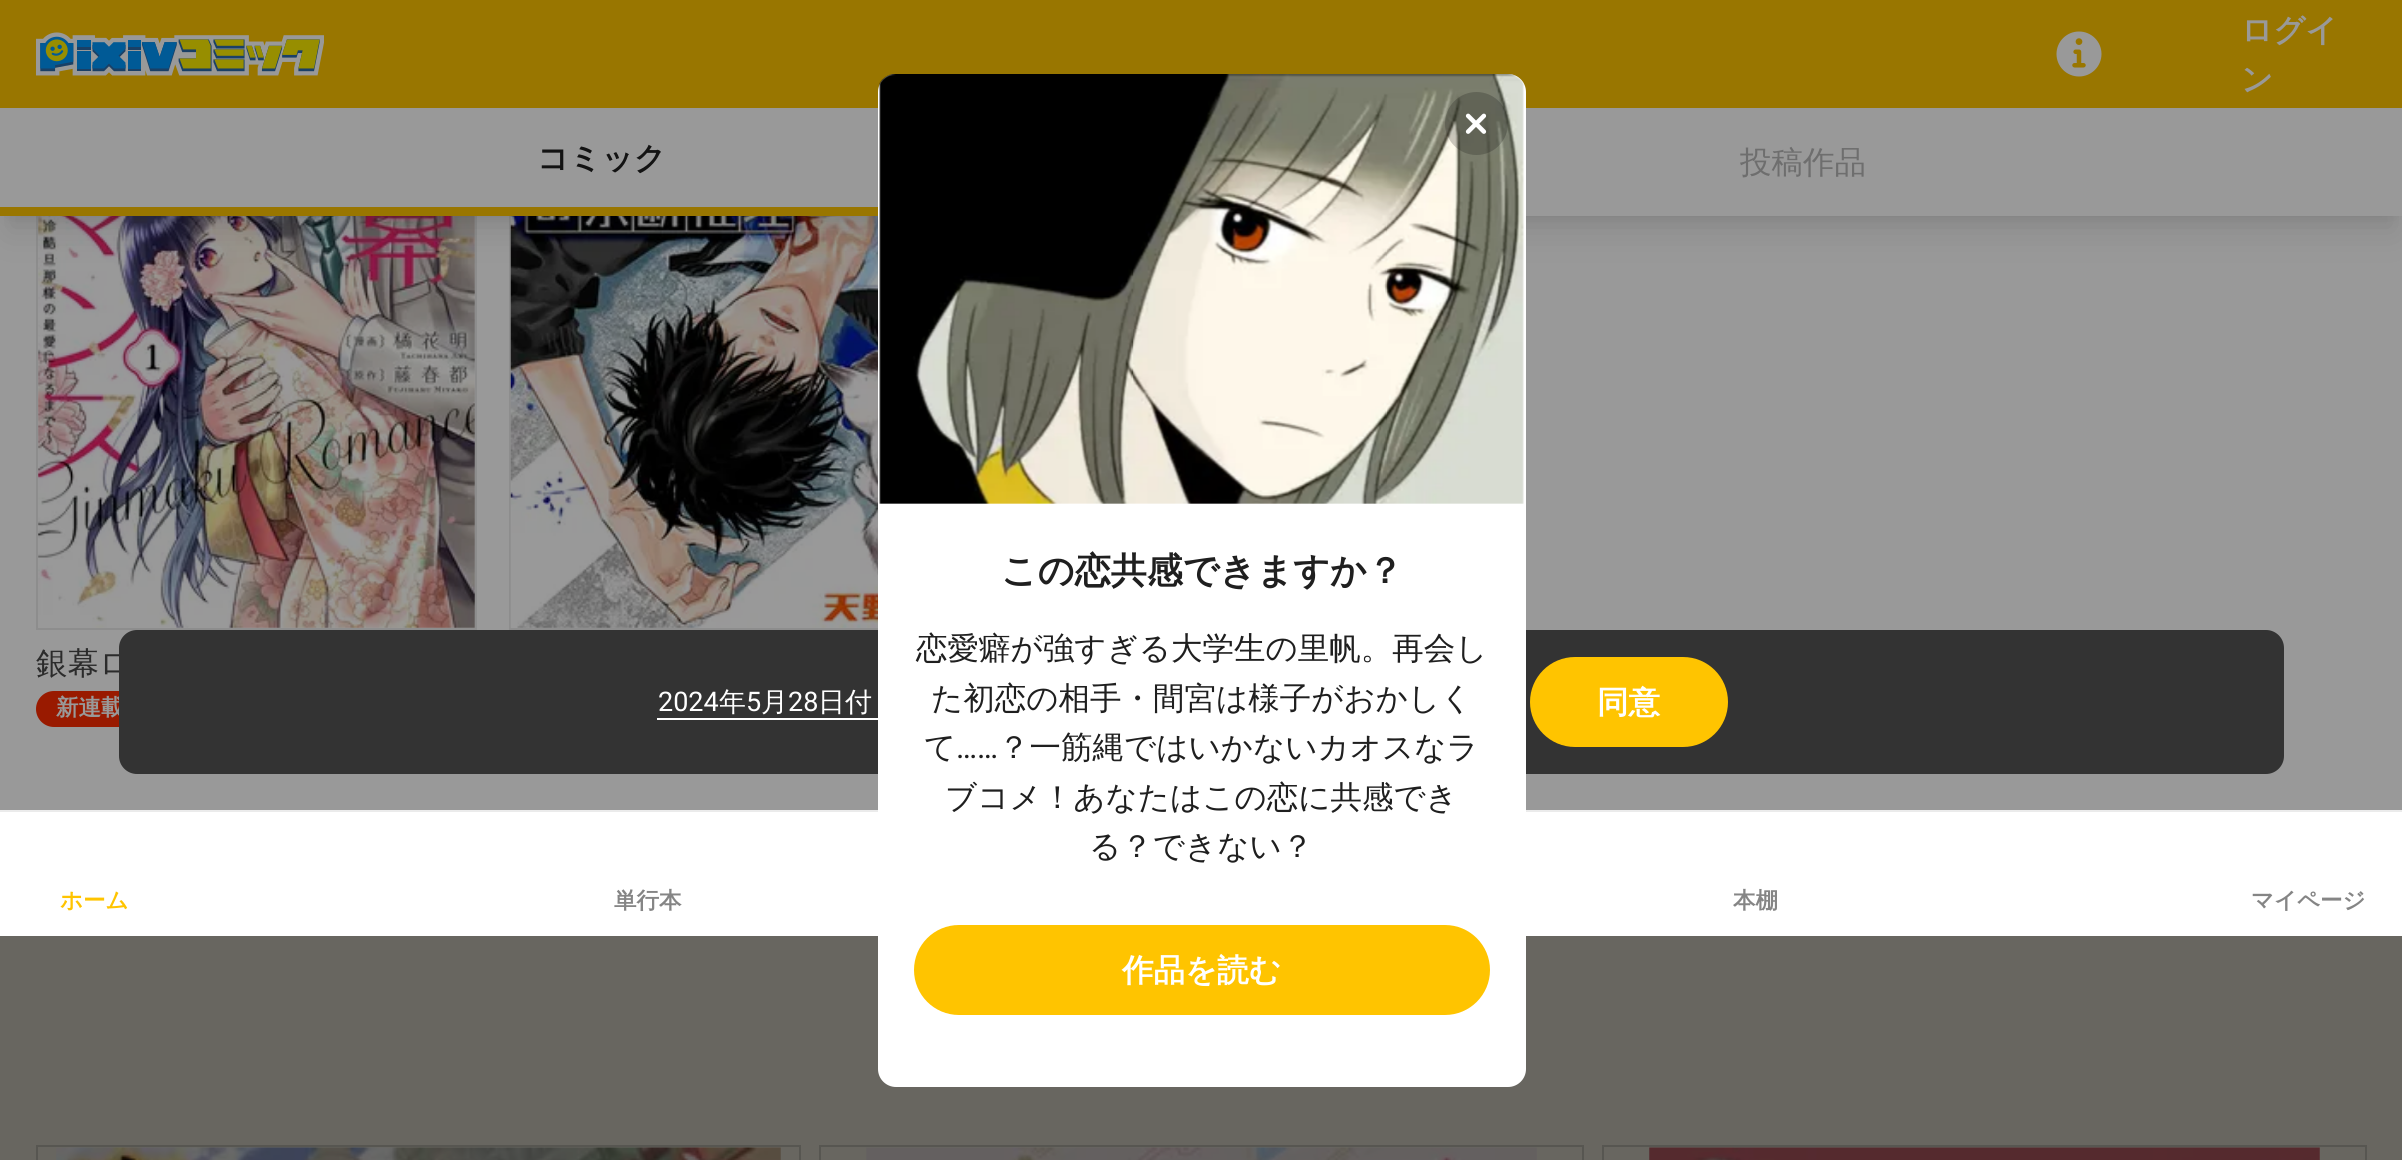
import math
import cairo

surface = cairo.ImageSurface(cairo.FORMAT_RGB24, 2402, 1160)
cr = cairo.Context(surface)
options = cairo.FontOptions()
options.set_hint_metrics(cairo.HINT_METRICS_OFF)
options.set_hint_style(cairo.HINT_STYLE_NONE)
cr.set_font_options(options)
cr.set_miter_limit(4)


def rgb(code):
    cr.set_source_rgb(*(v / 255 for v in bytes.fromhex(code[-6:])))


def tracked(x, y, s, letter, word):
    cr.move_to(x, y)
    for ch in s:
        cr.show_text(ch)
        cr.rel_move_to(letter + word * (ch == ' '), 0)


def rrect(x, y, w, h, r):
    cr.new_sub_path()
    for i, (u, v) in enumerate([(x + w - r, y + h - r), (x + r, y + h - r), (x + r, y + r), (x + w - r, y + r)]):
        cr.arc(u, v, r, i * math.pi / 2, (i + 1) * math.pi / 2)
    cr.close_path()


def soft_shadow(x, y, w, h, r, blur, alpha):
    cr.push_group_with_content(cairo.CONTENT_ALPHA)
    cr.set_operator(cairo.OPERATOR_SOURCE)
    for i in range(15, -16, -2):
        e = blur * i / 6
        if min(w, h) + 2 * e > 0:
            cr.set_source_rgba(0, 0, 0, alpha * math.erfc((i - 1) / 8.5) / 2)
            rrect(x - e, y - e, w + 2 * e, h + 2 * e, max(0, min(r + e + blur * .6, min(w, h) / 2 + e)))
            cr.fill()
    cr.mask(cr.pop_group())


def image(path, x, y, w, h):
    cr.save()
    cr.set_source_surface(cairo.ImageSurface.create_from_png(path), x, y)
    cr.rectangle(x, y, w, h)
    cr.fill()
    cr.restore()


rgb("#999999")
cr.paint()
cr.rectangle(510, 37, 441, 592)
rgb("#8d8d8d")
cr.stroke()
image("img/3.png", 510, 216, 368, 412)
cr.rectangle(37, 37, 439, 592)
cr.stroke()
image("img/4.png", 38, 216, 437, 412)
rgb("#000000")
soft_shadow(9, 126, 2385, 90, 0, 7, 0.1)
soft_shadow(7, 137, 2389, 95, 0, 17, 0.1)
rgb("#997600")
cr.rectangle(0, 0, 2402, 108)
cr.fill()
image("img/1.png", 36, 32, 288, 44)
image("img/2.png", 2056, 31, 46, 46)
rgb("#999999")
cr.rectangle(0, 108, 2402, 108)
cr.fill()
rgb("#997600")
cr.rectangle(0, 207, 878, 9)
cr.fill()
rgb("#991a00")
rrect(36, 691, 108, 36, 18)
cr.fill()
rgb("#99968d")
cr.rectangle(0, 936, 2402, 224)
cr.fill()
cr.rectangle(37, 1146, 763, 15)
rgb("#807e76")
cr.stroke()
image("img/5.png", 56, 1147, 725, 13)
cr.rectangle(820, 1146, 763, 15)
cr.stroke()
image("img/6.png", 866, 1147, 671, 13)
cr.rectangle(1603, 1146, 763, 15)
cr.stroke()
image("img/7.png", 1649, 1147, 671, 13)
rgb("#ffffff")
cr.rectangle(0, 812, 2402, 124)
cr.fill()
rgb("#ebebeb")
cr.rectangle(0, 810, 2402, 2)
cr.fill()
cr.set_source_rgba(0, 0, 0, 0.32)
cr.rectangle(0, 936, 2402, 224)
cr.fill()
cr.select_font_face("WenQuanYi Zen Hei", cairo.FONT_SLANT_NORMAL, cairo.FONT_WEIGHT_BOLD)
cr.set_font_size(31.5)
rgb("#999999")
cr.move_to(2241, 41)
cr.show_text("ログイ")
cr.move_to(2241, 90)
cr.show_text("ン")
rgb("#131313")
cr.move_to(537, 169)
cr.show_text("コミック")
cr.select_font_face("WenQuanYi Zen Hei Medium")
rgb("#6e6e6e")
cr.move_to(1740, 173)
cr.show_text("投稿作品")
rgb("#2b2b2b")
tracked(36, 674, "銀幕ロ", 0, -2)
cr.select_font_face("WenQuanYi Zen Hei", cairo.FONT_SLANT_NORMAL, cairo.FONT_WEIGHT_BOLD)
cr.set_font_size(22.5)
rgb("#999999")
cr.move_to(56, 715)
cr.show_text("新連載")
rgb("#333333")
rrect(119, 630, 2165, 144, 18)
cr.fill()
rgb("#ffffff")
rrect(878, 74, 648, 1013, 18)
cr.fill()
image("img/8.png", 879, 74, 645, 430)
cr.set_source_rgba(0, 0, 0, 0.2)
cr.arc(1476.5, 123.5, 31.5, 0, 2 * math.pi)
cr.fill()
image("img/9.png", 1465, 113, 22, 21)
rgb("#ffc400")
rrect(914, 925, 576, 90, 45)
cr.fill()
cr.set_font_size(31.5)
rgb("#ffffff")
cr.move_to(1122, 981)
cr.show_text("作品を読む")
cr.select_font_face("WenQuanYi Zen Hei Medium")
rgb("#1f1f1f")
for x, y, s in [
    (1089, 857, "る？できない？"),
    (945, 808, "ブコメ！あなたはこの恋に共感でき"),
    (998, 758, "？一筋縄ではいかないカオスなラ"),
]:
    cr.move_to(x, y)
    cr.show_text(s)
cr.select_font_face("Roboto")
cr.move_to(956, 758)
cr.show_text("……")
cr.select_font_face("WenQuanYi Zen Hei Medium")
for x, y, s in [
    (924, 758, "て"),
    (931, 709, "た初恋の相手・間宮は様子がおかしく"),
    (916, 659, "恋愛癖が強すぎる大学生の里帆。再会し"),
]:
    cr.move_to(x, y)
    cr.show_text(s)
cr.select_font_face("WenQuanYi Zen Hei", cairo.FONT_SLANT_NORMAL, cairo.FONT_WEIGHT_BOLD)
cr.set_font_size(36)
cr.move_to(1001, 583)
cr.show_text("この恋共感できますか？")
cr.select_font_face("Roboto")
cr.set_font_size(27)
rgb("#ffffff")
cr.move_to(658, 711)
cr.show_text("2024")
cr.select_font_face("WenQuanYi Zen Hei Medium")
cr.move_to(719, 711)
cr.show_text("年")
cr.select_font_face("Roboto")
cr.move_to(746, 711)
cr.show_text("5")
cr.select_font_face("WenQuanYi Zen Hei Medium")
cr.move_to(761, 711)
cr.show_text("月")
cr.rectangle(657, 718, 221, 2)
cr.fill()
cr.select_font_face("Roboto")
cr.move_to(788, 711)
cr.show_text("28")
cr.select_font_face("WenQuanYi Zen Hei Medium")
cr.move_to(818, 711)
cr.show_text("日付")
rgb("#ffc400")
rrect(1530, 657, 198, 90, 45)
cr.fill()
cr.select_font_face("WenQuanYi Zen Hei", cairo.FONT_SLANT_NORMAL, cairo.FONT_WEIGHT_BOLD)
cr.set_font_size(31.5)
rgb("#ffffff")
cr.move_to(1597, 713)
cr.show_text("同意")
cr.set_font_size(22.5)
rgb("#ffc400")
cr.move_to(60, 908)
cr.show_text("ホーム")
rgb("#858585")
for x, y, s in [
    (614, 908, "単行本"),
    (1733, 908, "本棚"),
    (2251, 908, "マイページ"),
]:
    cr.move_to(x, y)
    cr.show_text(s)
surface.write_to_png("page.png")
